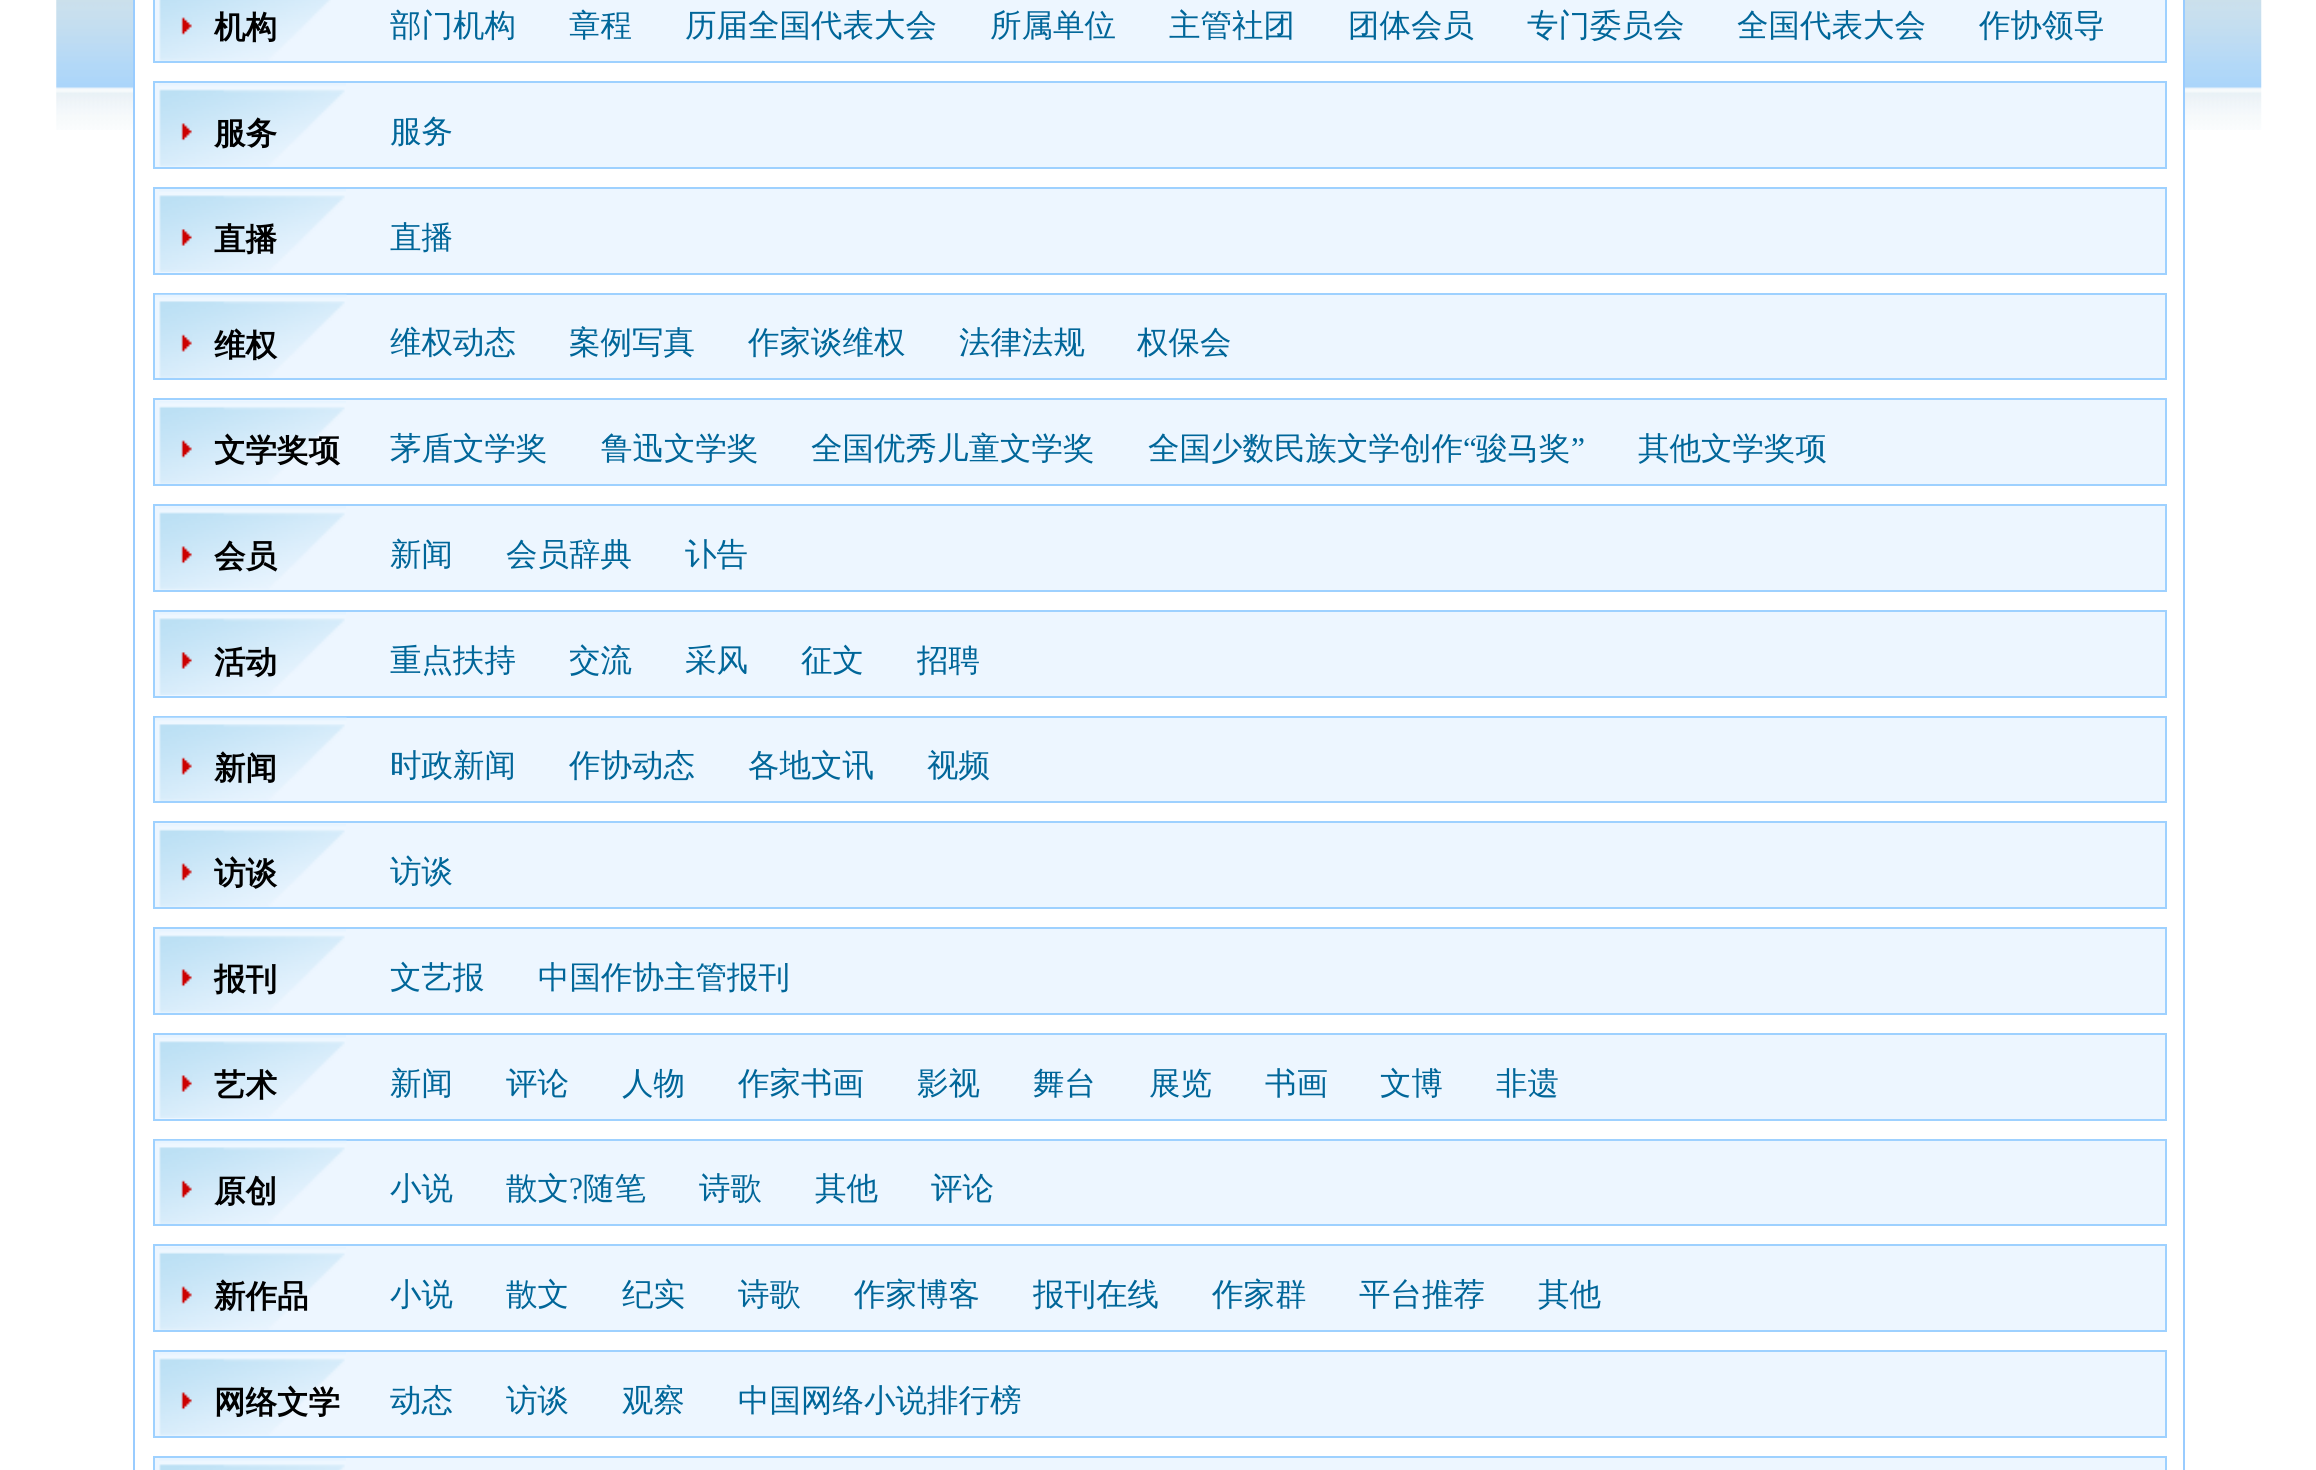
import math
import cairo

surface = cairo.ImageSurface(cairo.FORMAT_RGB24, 2316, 1470)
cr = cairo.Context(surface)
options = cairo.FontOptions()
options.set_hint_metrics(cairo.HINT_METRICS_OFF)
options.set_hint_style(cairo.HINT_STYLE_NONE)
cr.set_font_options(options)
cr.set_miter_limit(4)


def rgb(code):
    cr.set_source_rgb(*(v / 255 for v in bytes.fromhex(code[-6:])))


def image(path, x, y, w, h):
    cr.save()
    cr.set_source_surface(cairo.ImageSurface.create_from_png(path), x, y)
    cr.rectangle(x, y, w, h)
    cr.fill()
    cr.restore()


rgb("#ffffff")
cr.paint()
image("img/1.png", 56, 0, 2206, 130)
rgb("#ffffff")
cr.rectangle(135, 0, 2048, 130)
cr.fill()
cr.rectangle(134, -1, 2050, 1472)
rgb("#99ccff")
cr.stroke()
rgb("#edf6ff")
cr.rectangle(154, -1, 2012, 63)
cr.fill_preserve()
rgb("#9ed1ff")
cr.stroke()
image("img/2.png", 159, 0, 172, 61)
image("img/3.png", 181, 17, 11, 18)
rgb("#edf6ff")
cr.rectangle(154, 82, 2012, 86)
cr.fill_preserve()
rgb("#9ed1ff")
cr.stroke()
image("img/4.png", 159, 83, 187, 84)
image("img/5.png", 181, 123, 11, 18)
rgb("#edf6ff")
cr.rectangle(154, 188, 2012, 86)
cr.fill_preserve()
rgb("#9ed1ff")
cr.stroke()
image("img/6.png", 159, 189, 187, 83)
image("img/7.png", 181, 229, 11, 17)
rgb("#edf6ff")
cr.rectangle(154, 294, 2012, 85)
cr.fill_preserve()
rgb("#9ed1ff")
cr.stroke()
image("img/8.png", 155, 294, 192, 84)
image("img/9.png", 181, 334, 11, 18)
rgb("#edf6ff")
cr.rectangle(154, 399, 2012, 86)
cr.fill_preserve()
rgb("#9ed1ff")
cr.stroke()
image("img/10.png", 159, 401, 187, 83)
image("img/3.png", 181, 440, 11, 18)
rgb("#edf6ff")
cr.rectangle(154, 505, 2012, 86)
cr.fill_preserve()
rgb("#9ed1ff")
cr.stroke()
image("img/4.png", 159, 506, 187, 84)
image("img/5.png", 181, 546, 11, 18)
rgb("#edf6ff")
cr.rectangle(154, 611, 2012, 86)
cr.fill_preserve()
rgb("#9ed1ff")
cr.stroke()
image("img/11.png", 159, 612, 187, 83)
image("img/7.png", 181, 652, 11, 17)
rgb("#edf6ff")
cr.rectangle(154, 717, 2012, 85)
cr.fill_preserve()
rgb("#9ed1ff")
cr.stroke()
image("img/8.png", 155, 717, 192, 84)
image("img/9.png", 181, 757, 11, 18)
rgb("#edf6ff")
cr.rectangle(154, 822, 2012, 86)
cr.fill_preserve()
rgb("#9ed1ff")
cr.stroke()
image("img/10.png", 159, 824, 187, 83)
image("img/3.png", 181, 863, 11, 18)
rgb("#edf6ff")
cr.rectangle(154, 928, 2012, 86)
cr.fill_preserve()
rgb("#9ed1ff")
cr.stroke()
image("img/12.png", 159, 929, 187, 84)
image("img/5.png", 181, 969, 11, 18)
rgb("#edf6ff")
cr.rectangle(154, 1034, 2012, 86)
cr.fill_preserve()
rgb("#9ed1ff")
cr.stroke()
image("img/6.png", 159, 1035, 187, 83)
image("img/13.png", 181, 1075, 11, 17)
rgb("#edf6ff")
cr.rectangle(154, 1140, 2012, 85)
cr.fill_preserve()
rgb("#9ed1ff")
cr.stroke()
image("img/8.png", 155, 1140, 192, 84)
image("img/9.png", 181, 1180, 11, 18)
rgb("#edf6ff")
cr.rectangle(154, 1245, 2012, 86)
cr.fill_preserve()
rgb("#9ed1ff")
cr.stroke()
image("img/10.png", 159, 1247, 187, 83)
image("img/3.png", 181, 1286, 11, 18)
rgb("#edf6ff")
cr.rectangle(154, 1351, 2012, 86)
cr.fill_preserve()
rgb("#9ed1ff")
cr.stroke()
image("img/4.png", 159, 1352, 187, 84)
image("img/5.png", 181, 1392, 11, 18)
rgb("#edf6ff")
cr.rectangle(154, 1457, 2012, 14)
cr.fill_preserve()
rgb("#9ed1ff")
cr.stroke()
image("img/14.png", 159, 1458, 187, 12)
cr.select_font_face("WenQuanYi Zen Hei", cairo.FONT_SLANT_NORMAL, cairo.FONT_WEIGHT_BOLD)
cr.set_font_size(31.5)
rgb("#000000")
cr.move_to(214, 38)
cr.show_text("机构")
cr.select_font_face("WenQuanYi Zen Hei Medium")
rgb("#006699")
for x, y, s in [
    (390, 36, "部门机构"),
    (569, 36, "章程"),
    (685, 36, "历届全国代表大会"),
    (990, 36, "所属单位"),
    (1169, 36, "主管社团"),
    (1348, 36, "团体会员"),
    (1527, 36, "专门委员会"),
    (1737, 36, "全国代表大会"),
    (1979, 36, "作协领导"),
]:
    cr.move_to(x, y)
    cr.show_text(s)
cr.select_font_face("WenQuanYi Zen Hei", cairo.FONT_SLANT_NORMAL, cairo.FONT_WEIGHT_BOLD)
rgb("#000000")
cr.move_to(214, 144)
cr.show_text("服务")
cr.select_font_face("WenQuanYi Zen Hei Medium")
rgb("#006699")
cr.move_to(390, 142)
cr.show_text("服务")
cr.select_font_face("WenQuanYi Zen Hei", cairo.FONT_SLANT_NORMAL, cairo.FONT_WEIGHT_BOLD)
rgb("#000000")
cr.move_to(214, 250)
cr.show_text("直播")
cr.select_font_face("WenQuanYi Zen Hei Medium")
rgb("#006699")
cr.move_to(390, 248)
cr.show_text("直播")
cr.select_font_face("WenQuanYi Zen Hei", cairo.FONT_SLANT_NORMAL, cairo.FONT_WEIGHT_BOLD)
rgb("#000000")
cr.move_to(214, 356)
cr.show_text("维权")
cr.select_font_face("WenQuanYi Zen Hei Medium")
rgb("#006699")
for x, y, s in [
    (390, 353, "维权动态"),
    (569, 353, "案例写真"),
    (748, 353, "作家谈维权"),
    (959, 353, "法律法规"),
    (1137, 353, "权保会"),
]:
    cr.move_to(x, y)
    cr.show_text(s)
cr.select_font_face("WenQuanYi Zen Hei", cairo.FONT_SLANT_NORMAL, cairo.FONT_WEIGHT_BOLD)
rgb("#000000")
cr.move_to(214, 461)
cr.show_text("文学奖项")
cr.select_font_face("WenQuanYi Zen Hei Medium")
rgb("#006699")
for x, y, s in [
    (390, 459, "茅盾文学奖"),
    (601, 459, "鲁迅文学奖"),
    (811, 459, "全国优秀儿童文学奖"),
    (1148, 459, "全国少数民族文学创作"),
]:
    cr.move_to(x, y)
    cr.show_text(s)
cr.select_font_face("Liberation Serif")
cr.move_to(1463, 459)
cr.show_text("“")
cr.select_font_face("WenQuanYi Zen Hei Medium")
cr.move_to(1476, 459)
cr.show_text("骏马奖")
cr.select_font_face("Liberation Serif")
cr.move_to(1571, 459)
cr.show_text("”")
cr.select_font_face("WenQuanYi Zen Hei Medium")
cr.move_to(1638, 459)
cr.show_text("其他文学奖项")
cr.select_font_face("WenQuanYi Zen Hei", cairo.FONT_SLANT_NORMAL, cairo.FONT_WEIGHT_BOLD)
rgb("#000000")
cr.move_to(214, 567)
cr.show_text("会员")
cr.select_font_face("WenQuanYi Zen Hei Medium")
rgb("#006699")
for x, y, s in [
    (390, 565, "新闻"),
    (506, 565, "会员辞典"),
    (685, 565, "讣告"),
]:
    cr.move_to(x, y)
    cr.show_text(s)
cr.select_font_face("WenQuanYi Zen Hei", cairo.FONT_SLANT_NORMAL, cairo.FONT_WEIGHT_BOLD)
rgb("#000000")
cr.move_to(214, 673)
cr.show_text("活动")
cr.select_font_face("WenQuanYi Zen Hei Medium")
rgb("#006699")
for x, y, s in [
    (390, 671, "重点扶持"),
    (569, 671, "交流"),
    (685, 671, "采风"),
    (801, 671, "征文"),
    (917, 671, "招聘"),
]:
    cr.move_to(x, y)
    cr.show_text(s)
cr.select_font_face("WenQuanYi Zen Hei", cairo.FONT_SLANT_NORMAL, cairo.FONT_WEIGHT_BOLD)
rgb("#000000")
cr.move_to(214, 779)
cr.show_text("新闻")
cr.select_font_face("WenQuanYi Zen Hei Medium")
rgb("#006699")
for x, y, s in [
    (390, 776, "时政新闻"),
    (569, 776, "作协动态"),
    (748, 776, "各地文讯"),
    (927, 776, "视频"),
]:
    cr.move_to(x, y)
    cr.show_text(s)
cr.select_font_face("WenQuanYi Zen Hei", cairo.FONT_SLANT_NORMAL, cairo.FONT_WEIGHT_BOLD)
rgb("#000000")
cr.move_to(214, 884)
cr.show_text("访谈")
cr.select_font_face("WenQuanYi Zen Hei Medium")
rgb("#006699")
cr.move_to(390, 882)
cr.show_text("访谈")
cr.select_font_face("WenQuanYi Zen Hei", cairo.FONT_SLANT_NORMAL, cairo.FONT_WEIGHT_BOLD)
rgb("#000000")
cr.move_to(214, 990)
cr.show_text("报刊")
cr.select_font_face("WenQuanYi Zen Hei Medium")
rgb("#006699")
cr.move_to(390, 988)
cr.show_text("文艺报")
cr.move_to(538, 988)
cr.show_text("中国作协主管报刊")
cr.select_font_face("WenQuanYi Zen Hei", cairo.FONT_SLANT_NORMAL, cairo.FONT_WEIGHT_BOLD)
rgb("#000000")
cr.move_to(214, 1096)
cr.show_text("艺术")
cr.select_font_face("WenQuanYi Zen Hei Medium")
rgb("#006699")
for x, y, s in [
    (390, 1094, "新闻"),
    (506, 1094, "评论"),
    (622, 1094, "人物"),
    (738, 1094, "作家书画"),
    (917, 1094, "影视"),
    (1033, 1094, "舞台"),
    (1149, 1094, "展览"),
    (1265, 1094, "书画"),
    (1380, 1094, "文博"),
    (1496, 1094, "非遗"),
]:
    cr.move_to(x, y)
    cr.show_text(s)
cr.select_font_face("WenQuanYi Zen Hei", cairo.FONT_SLANT_NORMAL, cairo.FONT_WEIGHT_BOLD)
rgb("#000000")
cr.move_to(214, 1202)
cr.show_text("原创")
cr.select_font_face("WenQuanYi Zen Hei Medium")
rgb("#006699")
cr.move_to(390, 1199)
cr.show_text("小说")
cr.move_to(506, 1199)
cr.show_text("散文")
cr.select_font_face("Liberation Serif")
cr.move_to(569, 1199)
cr.show_text("?")
cr.select_font_face("WenQuanYi Zen Hei Medium")
for x, y, s in [
    (583, 1199, "随笔"),
    (699, 1199, "诗歌"),
    (815, 1199, "其他"),
    (931, 1199, "评论"),
]:
    cr.move_to(x, y)
    cr.show_text(s)
cr.select_font_face("WenQuanYi Zen Hei", cairo.FONT_SLANT_NORMAL, cairo.FONT_WEIGHT_BOLD)
rgb("#000000")
cr.move_to(214, 1307)
cr.show_text("新作品")
cr.select_font_face("WenQuanYi Zen Hei Medium")
rgb("#006699")
for x, y, s in [
    (390, 1305, "小说"),
    (506, 1305, "散文"),
    (622, 1305, "纪实"),
    (738, 1305, "诗歌"),
    (854, 1305, "作家博客"),
    (1033, 1305, "报刊在线"),
    (1212, 1305, "作家群"),
    (1359, 1305, "平台推荐"),
    (1538, 1305, "其他"),
]:
    cr.move_to(x, y)
    cr.show_text(s)
cr.select_font_face("WenQuanYi Zen Hei", cairo.FONT_SLANT_NORMAL, cairo.FONT_WEIGHT_BOLD)
rgb("#000000")
cr.move_to(214, 1413)
cr.show_text("网络文学")
cr.select_font_face("WenQuanYi Zen Hei Medium")
rgb("#006699")
for x, y, s in [
    (390, 1411, "动态"),
    (506, 1411, "访谈"),
    (622, 1411, "观察"),
    (738, 1411, "中国网络小说排行榜"),
]:
    cr.move_to(x, y)
    cr.show_text(s)
surface.write_to_png("page.png")
